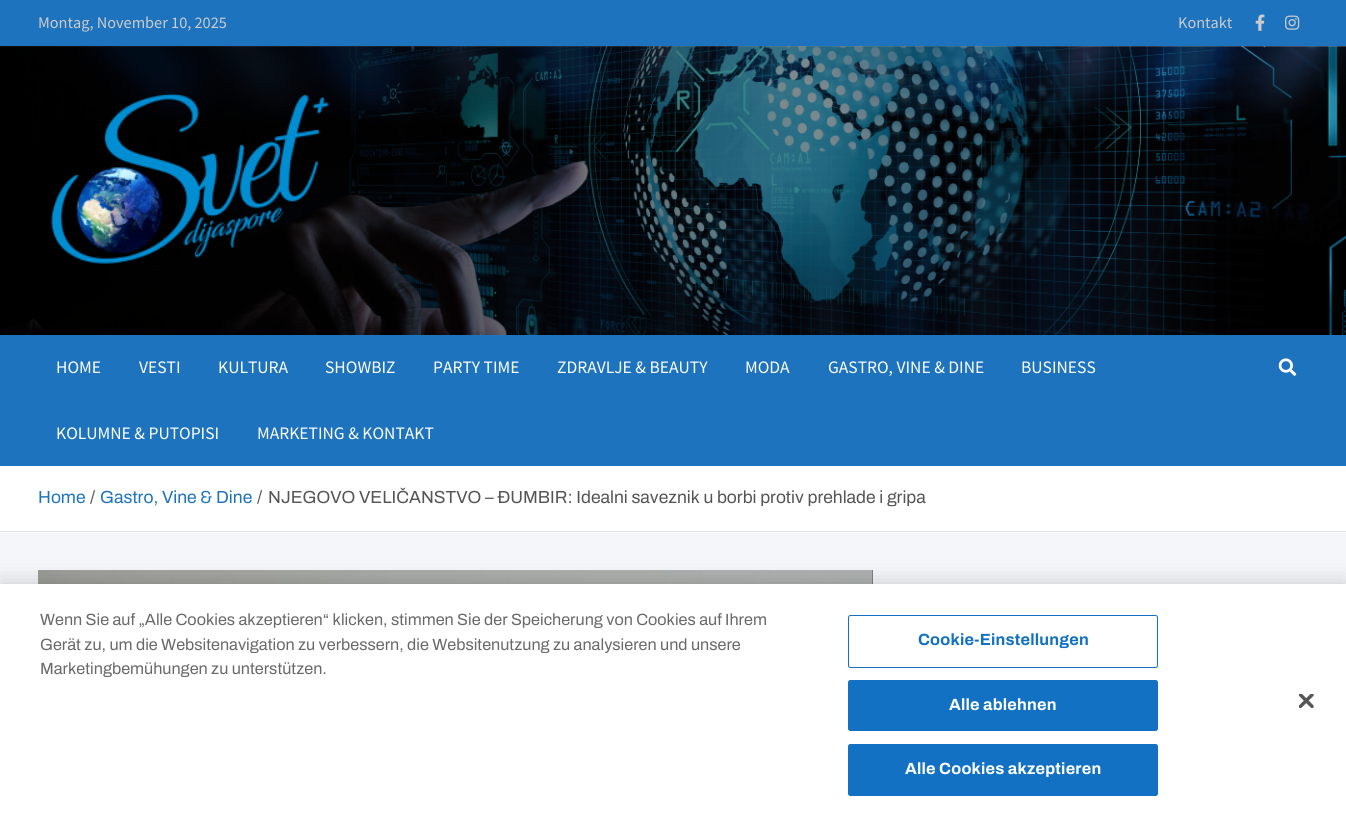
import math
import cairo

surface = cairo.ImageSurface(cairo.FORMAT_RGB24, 1346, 821)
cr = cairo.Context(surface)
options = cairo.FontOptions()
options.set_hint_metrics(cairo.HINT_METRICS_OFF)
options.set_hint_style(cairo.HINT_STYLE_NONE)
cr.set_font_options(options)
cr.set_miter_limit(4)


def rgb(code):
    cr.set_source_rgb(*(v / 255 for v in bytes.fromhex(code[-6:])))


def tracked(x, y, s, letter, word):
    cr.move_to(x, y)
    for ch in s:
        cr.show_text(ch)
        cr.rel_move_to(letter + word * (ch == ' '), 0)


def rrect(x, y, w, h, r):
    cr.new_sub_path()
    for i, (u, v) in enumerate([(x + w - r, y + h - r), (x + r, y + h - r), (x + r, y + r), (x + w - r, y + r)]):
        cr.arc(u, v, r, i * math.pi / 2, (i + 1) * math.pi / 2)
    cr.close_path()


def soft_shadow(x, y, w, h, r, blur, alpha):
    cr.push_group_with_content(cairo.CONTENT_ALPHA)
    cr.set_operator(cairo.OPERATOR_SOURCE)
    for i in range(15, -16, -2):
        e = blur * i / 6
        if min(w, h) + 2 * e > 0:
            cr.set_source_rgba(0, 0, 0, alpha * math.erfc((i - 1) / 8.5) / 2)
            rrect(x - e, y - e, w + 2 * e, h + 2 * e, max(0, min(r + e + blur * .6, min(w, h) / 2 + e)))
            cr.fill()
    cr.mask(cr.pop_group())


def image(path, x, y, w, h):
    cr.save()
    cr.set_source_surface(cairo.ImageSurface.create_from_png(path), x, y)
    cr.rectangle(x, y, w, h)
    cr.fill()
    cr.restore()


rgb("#f4f6f9")
cr.paint()
rgb("#1e73be")
cr.rectangle(0, 0, 1346, 46)
cr.fill()
image("img/1.png", 1255, 14, 10, 17)
image("img/2.png", 1285, 15, 15, 15)
image("img/3.png", 0, 46, 1346, 289)
gradient = cairo.LinearGradient(0, 191, 1346, 191)
gradient.add_color_stop_rgba(0, 0, 0, 0, 0.8)
gradient.add_color_stop_rgba(1, 0, 0, 0, 0.2)
cr.set_source(gradient)
cr.rectangle(0, 46, 1346, 289)
cr.fill()
image("img/4.png", 51, 93, 278, 171)
rgb("#1e73be")
cr.rectangle(0, 335, 1346, 131)
cr.fill()
image("img/5.png", 1278, 358, 19, 18)
for x, y, w, h, color in [
    (0, 466, 1346, 67, "#ffffff"),
    (0, 531, 1346, 1, "#e6e6e6"),
    (872, 570, 1, 14, "#555555"),
]:
    rgb(color)
    cr.rectangle(x, y, w, h)
    cr.fill()
image("img/6.png", 38, 570, 835, 14)
rgb("#000000")
soft_shadow(0, 584, 1346, 237, 0, 11, 0.2)
rgb("#ffffff")
cr.rectangle(0, 584, 1346, 237)
cr.fill()
rrect(848.5, 615.5, 309, 52, 2)
rgb("#1371c3")
cr.set_line_width(1)
cr.stroke()
rrect(848.5, 680.5, 309, 50, 2)
cr.fill_preserve()
cr.stroke()
rrect(848.5, 744.5, 309, 51, 2)
cr.fill_preserve()
cr.stroke()
image("img/7.png", 1299, 694, 15, 15)
cr.select_font_face("Source Sans Pro")
cr.set_font_size(16.25)
rgb("#cccccc")
cr.move_to(38, 28)
cr.show_text("Montag, November 10, 2025")
cr.move_to(1178, 28)
cr.show_text("Kontakt")
cr.set_font_size(17.5)
rgb("#ffffff")
for x, y, s in [
    (56, 373, "HOME"),
    (139, 373, "VESTI"),
    (218, 373, "KULTURA"),
    (325, 373, "SHOWBIZ"),
    (433, 373, "PARTY TIME"),
    (557, 373, "ZDRAVLJE & BEAUTY"),
    (745, 373, "MODA"),
    (828, 373, "GASTRO, VINE & DINE"),
    (1021, 373, "BUSINESS"),
    (56, 439, "KOLUMNE & PUTOPISI"),
    (257, 439, "MARKETING & KONTAKT"),
]:
    cr.move_to(x, y)
    cr.show_text(s)
cr.select_font_face("Archivo")
rgb("#1e73be")
cr.move_to(38, 503)
cr.show_text("Home")
rgb("#555555")
cr.move_to(90, 503)
cr.show_text("/")
rgb("#1e73be")
cr.move_to(100, 503)
cr.show_text("Gastro, Vine & Dine")
rgb("#555555")
cr.move_to(257, 503)
cr.show_text("/")
cr.move_to(268, 503)
cr.show_text("NJEGOVO VELIČANSTVO – ĐUMBIR: Idealni saveznik u borbi protiv prehlade i gripa")
cr.set_font_size(16.25)
rgb("#696969")
for x, y, s in [
    (40, 625, "Wenn Sie auf „Alle Cookies akzeptieren“ klicken, stimmen Sie der Speicherung von Cookies auf Ihrem"),
    (40, 650, "Gerät zu, um die Websitenavigation zu verbessern, die Websitenutzung zu analysieren und unsere"),
    (40, 674, "Marketingbemühungen zu unterstützen."),
]:
    cr.move_to(x, y)
    cr.show_text(s)
cr.select_font_face("Archivo", cairo.FONT_SLANT_NORMAL, cairo.FONT_WEIGHT_BOLD)
rgb("#1371c3")
tracked(918, 645, "Cookie-Einstellungen", 0.2, 0)
rgb("#ffffff")
tracked(949, 710, "Alle ablehnen", 0.2, 0)
tracked(905, 774, "Alle Cookies akzeptieren", 0.2, 0)
surface.write_to_png("page.png")
